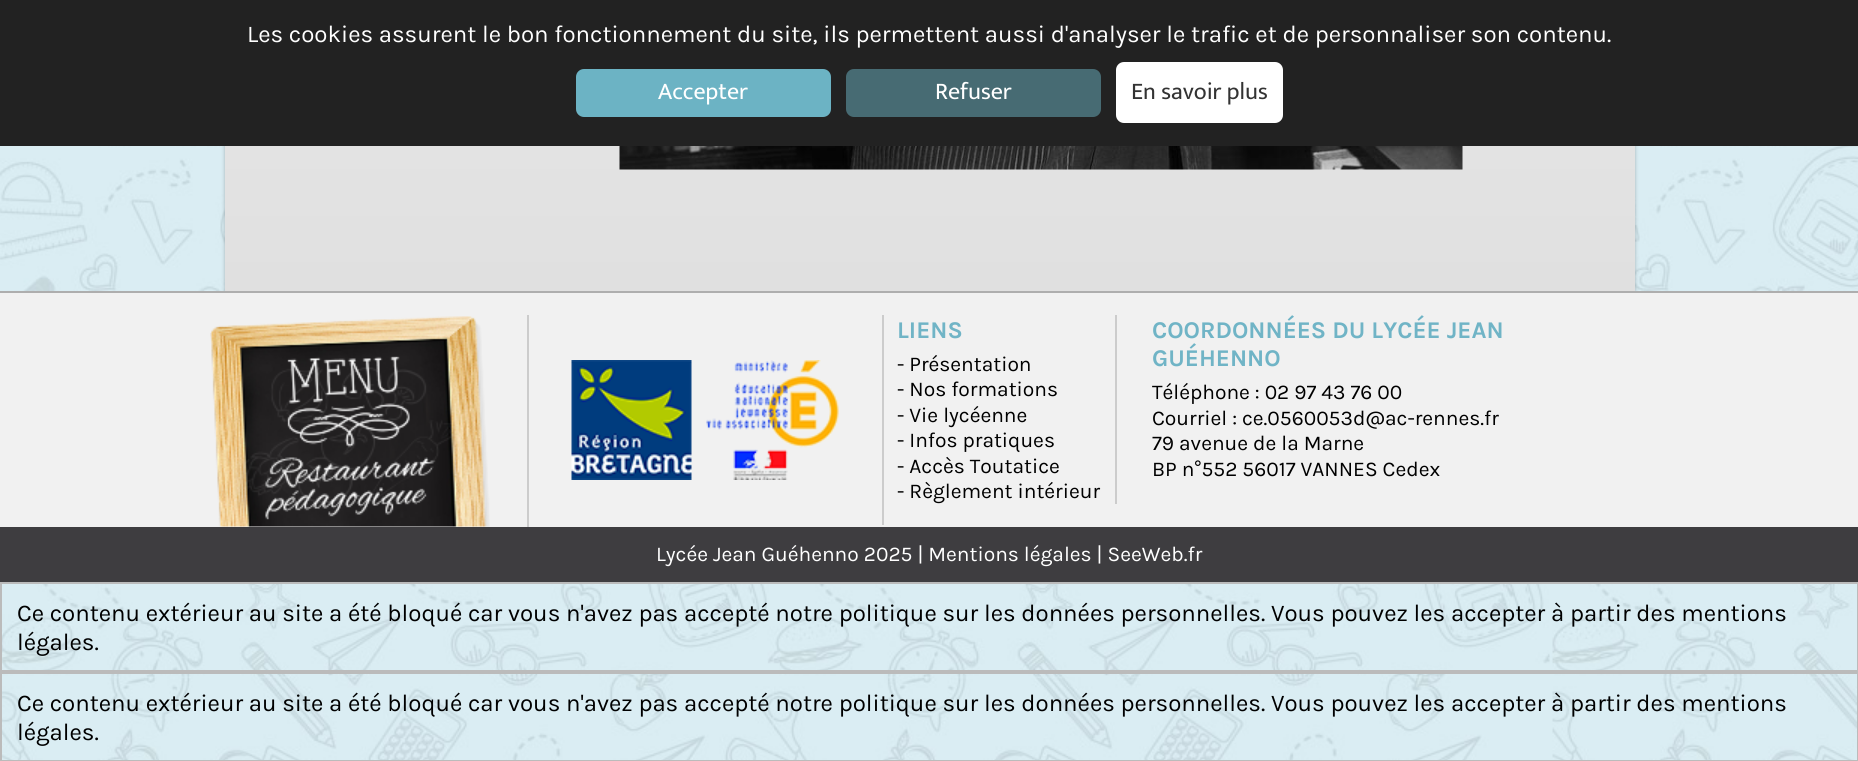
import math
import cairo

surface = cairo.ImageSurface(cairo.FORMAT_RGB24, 1858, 761)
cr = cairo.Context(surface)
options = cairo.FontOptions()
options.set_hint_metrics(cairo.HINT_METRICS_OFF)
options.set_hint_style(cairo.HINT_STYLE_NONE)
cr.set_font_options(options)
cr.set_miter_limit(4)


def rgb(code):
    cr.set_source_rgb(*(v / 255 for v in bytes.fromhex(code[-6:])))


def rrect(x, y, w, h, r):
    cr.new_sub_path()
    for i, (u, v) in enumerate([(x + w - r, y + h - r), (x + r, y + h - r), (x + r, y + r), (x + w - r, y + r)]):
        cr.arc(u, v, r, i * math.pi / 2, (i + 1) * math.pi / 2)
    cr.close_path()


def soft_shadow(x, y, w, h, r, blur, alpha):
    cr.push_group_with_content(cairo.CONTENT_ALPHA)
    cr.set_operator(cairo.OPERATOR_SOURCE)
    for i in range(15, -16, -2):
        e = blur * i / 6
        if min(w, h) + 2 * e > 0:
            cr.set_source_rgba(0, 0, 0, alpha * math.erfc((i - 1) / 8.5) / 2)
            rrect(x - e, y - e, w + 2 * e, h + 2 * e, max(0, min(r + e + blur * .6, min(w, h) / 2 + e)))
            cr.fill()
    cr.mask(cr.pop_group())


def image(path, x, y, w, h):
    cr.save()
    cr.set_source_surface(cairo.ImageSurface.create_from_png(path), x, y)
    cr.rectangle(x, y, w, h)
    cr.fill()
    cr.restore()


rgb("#ffffff")
cr.paint()
image("img/1.png", 0, 146, 1858, 614)
rgb("#010101")
soft_shadow(225, -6, 1410, 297, 0, 2, 0.25)
gradient = cairo.LinearGradient(930, 291, 930, -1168)
gradient.add_color_stop_rgba(0, 0.878, 0.878, 0.878, 1)
gradient.add_color_stop_rgba(1, 1, 1, 1, 1)
cr.set_source(gradient)
cr.rectangle(225, 146, 1410, 145)
cr.fill()
image("img/2.png", 619, 146, 844, 24)
rgb("#222222")
cr.rectangle(0, 0, 1858, 146)
cr.fill()
rgb("#6cb3c4")
rrect(576, 69, 255, 48, 8)
cr.fill()
rgb("#476b73")
rrect(846, 69, 255, 48, 8)
cr.fill()
rgb("#ffffff")
rrect(1116, 62, 167, 61, 8)
cr.fill()
for x, y, w, h, color in [
    (0, 293, 1858, 234, "#f1f1f1"),
    (0, 291, 1858, 2, "#aeaeae"),
    (527, 315, 2, 212, "#cccccc"),
]:
    rgb(color)
    cr.rectangle(x, y, w, h)
    cr.fill()
image("img/3.png", 210, 316, 280, 211)
cr.rectangle(882, 315, 2, 210)
cr.fill()
image("img/4.png", 571, 360, 121, 120)
image("img/5.png", 706, 360, 133, 120)
cr.rectangle(1115, 315, 2, 189)
cr.fill()
rgb("#3e3d40")
cr.rectangle(0, 527, 1858, 55)
cr.fill()
cr.rectangle(1, 583, 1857, 88)
rgb("#bbbbbb")
cr.stroke()
cr.rectangle(1, 673, 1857, 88)
cr.stroke()
cr.select_font_face("Karla")
cr.set_font_size(24)
rgb("#ffffff")
cr.move_to(247, 42)
cr.show_text("Les cookies assurent le bon fonctionnement du site, ils permettent aussi d'analyser le trafic et de personnaliser son contenu.")
cr.select_font_face("Mukta Vaani")
cr.move_to(658, 99)
cr.show_text("Accepter")
cr.move_to(935, 99)
cr.show_text("Refuser")
rgb("#333333")
cr.move_to(1131, 99)
cr.show_text("En savoir plus")
cr.select_font_face("Karla", cairo.FONT_SLANT_NORMAL, cairo.FONT_WEIGHT_BOLD)
rgb("#70b4c6")
cr.move_to(897, 338)
cr.show_text("LIENS")
cr.select_font_face("Karla")
cr.set_font_size(21)
rgb("#000000")
for x, y, s in [
    (897, 371, "- Présentation"),
    (897, 396, "- Nos formations"),
    (897, 422, "- Vie lycéenne"),
    (897, 447, "- Infos pratiques"),
    (897, 473, "- Accès Toutatice"),
    (897, 498, "- Règlement intérieur"),
]:
    cr.move_to(x, y)
    cr.show_text(s)
cr.select_font_face("Karla", cairo.FONT_SLANT_NORMAL, cairo.FONT_WEIGHT_BOLD)
cr.set_font_size(24)
rgb("#70b4c6")
cr.move_to(1152, 338)
cr.show_text("COORDONNÉES DU LYCÉE JEAN")
cr.move_to(1152, 366)
cr.show_text("GUÉHENNO")
cr.select_font_face("Karla")
cr.set_font_size(21)
rgb("#000000")
for x, y, s in [
    (1152, 399, "Téléphone : 02 97 43 76 00"),
    (1152, 425, "Courriel : ce.0560053d@ac-rennes.fr"),
    (1152, 450, "79 avenue de la Marne"),
    (1152, 476, "BP n°552 56017 VANNES Cedex"),
]:
    cr.move_to(x, y)
    cr.show_text(s)
rgb("#ffffff")
cr.move_to(656, 561)
cr.show_text("Lycée Jean Guéhenno 2025 | Mentions légales | SeeWeb.fr")
cr.set_font_size(24)
rgb("#000000")
for x, y, s in [
    (17, 621, "Ce contenu extérieur au site a été bloqué car vous n'avez pas accepté notre politique sur les données personnelles. Vous pouvez les accepter à partir des mentions"),
    (17, 650, "légales."),
    (17, 711, "Ce contenu extérieur au site a été bloqué car vous n'avez pas accepté notre politique sur les données personnelles. Vous pouvez les accepter à partir des mentions"),
    (17, 740, "légales."),
]:
    cr.move_to(x, y)
    cr.show_text(s)
surface.write_to_png("page.png")
